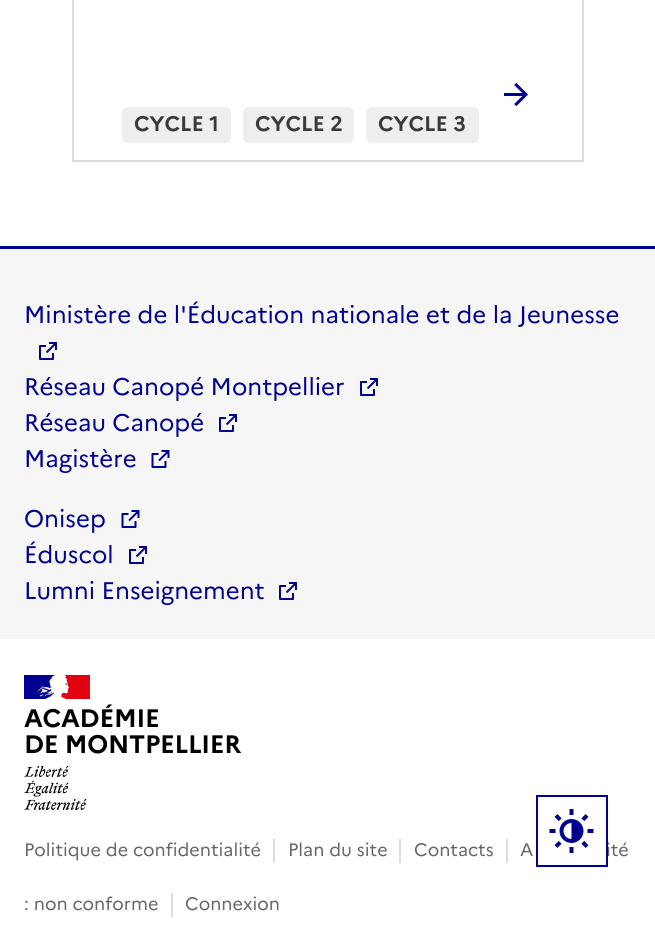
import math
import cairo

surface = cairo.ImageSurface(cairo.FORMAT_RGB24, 655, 951)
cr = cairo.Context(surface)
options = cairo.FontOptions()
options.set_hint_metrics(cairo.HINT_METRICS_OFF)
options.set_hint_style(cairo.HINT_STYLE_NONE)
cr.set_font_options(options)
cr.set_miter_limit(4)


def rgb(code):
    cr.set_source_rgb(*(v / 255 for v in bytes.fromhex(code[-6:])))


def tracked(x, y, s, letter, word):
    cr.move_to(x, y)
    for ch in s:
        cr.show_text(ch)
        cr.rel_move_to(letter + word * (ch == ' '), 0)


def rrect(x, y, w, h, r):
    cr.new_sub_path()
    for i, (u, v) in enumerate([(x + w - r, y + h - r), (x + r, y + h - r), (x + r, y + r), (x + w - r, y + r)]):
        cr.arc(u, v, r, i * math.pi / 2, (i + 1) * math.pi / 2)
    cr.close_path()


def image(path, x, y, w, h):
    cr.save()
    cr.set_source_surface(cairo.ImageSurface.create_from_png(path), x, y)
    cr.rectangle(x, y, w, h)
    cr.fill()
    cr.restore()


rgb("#ffffff")
cr.paint()
cr.rectangle(73, -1, 510, 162)
rgb("#dddddd")
cr.stroke()
image("img/1.png", 504, 82, 24, 25)
rgb("#eeeeee")
rrect(122, 107, 109, 36, 6)
cr.fill()
rrect(243, 107, 111, 36, 6)
cr.fill()
rrect(366, 107, 113, 36, 6)
cr.fill()
rgb("#000091")
cr.rectangle(0, 246, 655, 3)
cr.fill()
rgb("#f6f6f6")
cr.rectangle(0, 249, 655, 390)
cr.fill()
image("img/2.png", 39, 342, 18, 18)
image("img/2.png", 360, 378, 18, 18)
image("img/2.png", 219, 414, 18, 18)
image("img/3.png", 151, 450, 19, 18)
image("img/3.png", 121, 510, 19, 18)
image("img/2.png", 129, 546, 18, 18)
image("img/2.png", 279, 582, 18, 18)
rgb("#000091")
cr.rectangle(24, 675, 32, 24)
cr.fill()
rgb("#e1000f")
cr.rectangle(61, 675, 29, 24)
cr.fill()
image("img/4.png", 37, 675, 32, 24)
image("img/5.png", 24, 766, 63, 44)
for x, y, w, h, color in [
    (506, 839, 2, 24, "#dddddd"),
    (273, 839, 2, 24, "#dddddd"),
    (399, 839, 2, 24, "#dddddd"),
    (171, 893, 2, 24, "#dddddd"),
]:
    rgb(color)
    cr.rectangle(x, y, w, h)
    cr.fill()
cr.select_font_face("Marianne", cairo.FONT_SLANT_NORMAL, cairo.FONT_WEIGHT_BOLD)
cr.set_font_size(21)
rgb("#3a3a3a")
for x, y, s in [
    (134, 131, "CYCLE 1"),
    (255, 131, "CYCLE 2"),
    (378, 131, "CYCLE 3"),
]:
    cr.move_to(x, y)
    cr.show_text(s)
cr.select_font_face("Marianne")
cr.set_font_size(24)
rgb("#000091")
for x, y, s in [
    (24, 323, "Ministère de l'Éducation nationale et de la Jeunesse"),
    (24, 395, "Réseau Canopé Montpellier"),
    (24, 431, "Réseau Canopé"),
    (24, 467, "Magistère"),
    (24, 527, "Onisep"),
    (24, 563, "Éduscol"),
    (24, 599, "Lumni Enseignement"),
]:
    cr.move_to(x, y)
    cr.show_text(s)
cr.select_font_face("Marianne", cairo.FONT_SLANT_NORMAL, cairo.FONT_WEIGHT_BOLD)
cr.set_font_size(25.25)
rgb("#000000")
tracked(24, 727, "ACADÉMIE", -0.25, 0)
tracked(24, 753, "DE MONTPELLIER", -0.25, 0)
cr.select_font_face("Marianne")
cr.set_font_size(18)
rgb("#666666")
for x, y, s in [
    (24, 856, "Politique de confidentialité"),
    (520, 856, "A"),
    (606, 856, "ité"),
    (24, 910, ": non conforme"),
    (288, 856, "Plan du site"),
    (414, 856, "Contacts"),
    (185, 910, "Connexion"),
]:
    cr.move_to(x, y)
    cr.show_text(s)
cr.rectangle(537, 796, 70, 70)
rgb("#000091")
cr.stroke()
image("img/6.png", 549, 809, 45, 44)
surface.write_to_png("page.png")
